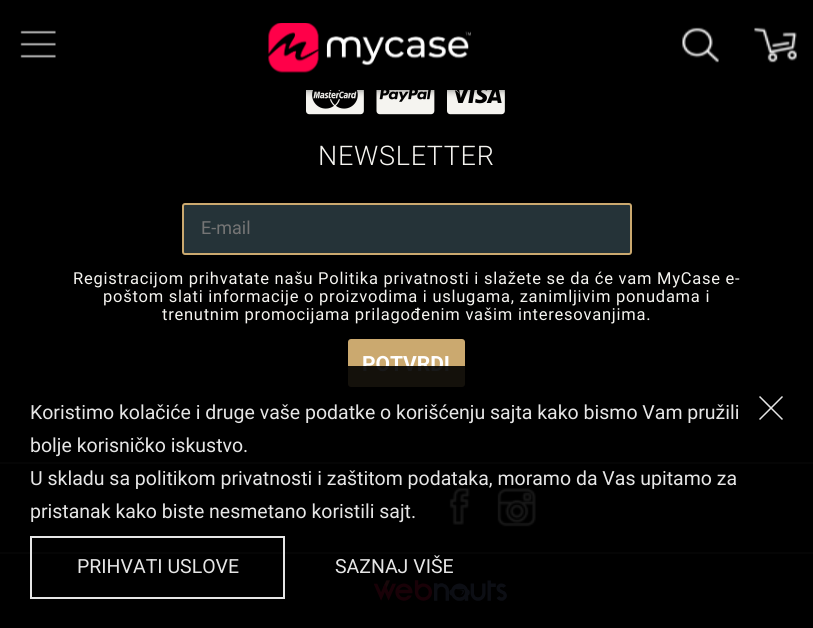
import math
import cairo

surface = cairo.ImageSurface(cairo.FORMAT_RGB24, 813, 628)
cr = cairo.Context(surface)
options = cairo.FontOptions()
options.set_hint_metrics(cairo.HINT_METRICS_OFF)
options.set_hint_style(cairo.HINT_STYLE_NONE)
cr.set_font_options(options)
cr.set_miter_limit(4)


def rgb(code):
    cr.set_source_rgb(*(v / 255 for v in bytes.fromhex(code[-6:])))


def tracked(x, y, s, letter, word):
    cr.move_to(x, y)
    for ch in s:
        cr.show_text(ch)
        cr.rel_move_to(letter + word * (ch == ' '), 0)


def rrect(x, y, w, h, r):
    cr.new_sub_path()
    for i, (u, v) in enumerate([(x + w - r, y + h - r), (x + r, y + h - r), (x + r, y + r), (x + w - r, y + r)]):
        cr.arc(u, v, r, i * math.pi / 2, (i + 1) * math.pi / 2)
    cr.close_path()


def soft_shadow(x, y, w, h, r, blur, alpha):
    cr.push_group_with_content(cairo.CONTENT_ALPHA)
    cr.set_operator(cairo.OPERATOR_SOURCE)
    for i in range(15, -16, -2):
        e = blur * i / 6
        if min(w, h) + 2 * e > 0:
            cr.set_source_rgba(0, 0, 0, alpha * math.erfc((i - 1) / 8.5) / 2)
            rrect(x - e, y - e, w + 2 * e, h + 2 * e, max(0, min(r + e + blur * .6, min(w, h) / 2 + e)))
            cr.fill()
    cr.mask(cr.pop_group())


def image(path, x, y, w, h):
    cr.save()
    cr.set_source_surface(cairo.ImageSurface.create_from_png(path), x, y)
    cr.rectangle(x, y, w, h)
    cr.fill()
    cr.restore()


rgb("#000000")
cr.paint()
image("img/5.png", 306, 90, 58, 25)
image("img/6.png", 376, 90, 59, 25)
image("img/7.png", 447, 90, 58, 25)
soft_shadow(0, 0, 813, 90, 0, 4, 0.5)
image("img/1.png", 20, 30, 36, 28)
image("img/2.png", 268, 23, 203, 50)
image("img/3.png", 682, 27, 37, 36)
image("img/4.png", 754, 27, 43, 36)
rgb("#253338")
rrect(183, 204, 448, 50, 2)
cr.fill_preserve()
rgb("#cba96f")
cr.stroke()
rrect(348, 339, 117, 48, 3)
cr.fill()
rgb("#333333")
cr.rectangle(0, 462, 813, 2)
cr.fill()
image("img/8.png", 449, 488, 21, 37)
image("img/9.png", 497, 488, 39, 39)
cr.rectangle(0, 552, 813, 2)
cr.fill()
image("img/10.png", 374, 580, 133, 21)
cr.select_font_face("Roboto Light")
cr.set_font_size(27)
rgb("#f5f4f0")
tracked(318, 165, "NEWSLETTER", 0.75, 0)
cr.select_font_face("Roboto")
cr.set_font_size(18)
rgb("#757575")
cr.move_to(201, 234)
cr.show_text("E-mail")
cr.set_font_size(16.5)
rgb("#f5f4f0")
for x, y, s in [
    (73, 284, "Registracijom prihvatate našu Politika privatnosti i slažete se da će vam MyCase e-"),
    (103, 302, "poštom slati informacije o proizvodima i uslugama, zanimljivim ponudama i"),
    (162, 320, "trenutnim promocijama prilagođenim vašim interesovanjima."),
]:
    tracked(x, y, s, 0.75, 0)
cr.select_font_face("Roboto", cairo.FONT_SLANT_NORMAL, cairo.FONT_WEIGHT_BOLD)
cr.set_font_size(21)
rgb("#ffffff")
cr.move_to(362, 371)
cr.show_text("POTVRDI")
cr.set_source_rgba(0, 0, 0, 0.9)
cr.rectangle(0, 366, 813, 235)
cr.fill()
cr.select_font_face("Roboto")
cr.set_font_size(19.5)
rgb("#e6e6e6")
for x, y, s in [
    (30, 419, "Koristimo kolačiće i druge vaše podatke o korišćenju sajta kako bismo Vam pružili"),
    (30, 452, "bolje korisničko iskustvo."),
    (30, 485, "U skladu sa politikom privatnosti i zaštitom podataka, moramo da Vas upitamo za"),
    (30, 518, "pristanak kako biste nesmetano koristili sajt."),
]:
    cr.move_to(x, y)
    cr.show_text(s)
cr.rectangle(31, 537, 253, 61)
cr.set_source_rgba(1, 1, 1, 0.9)
cr.stroke()
rgb("#e6e6e6")
cr.move_to(77, 573)
cr.show_text("PRIHVATI USLOVE")
cr.move_to(335, 573)
cr.show_text("SAZNAJ VIŠE")
image("img/11.png", 759, 396, 24, 24)
surface.write_to_png("page.png")
